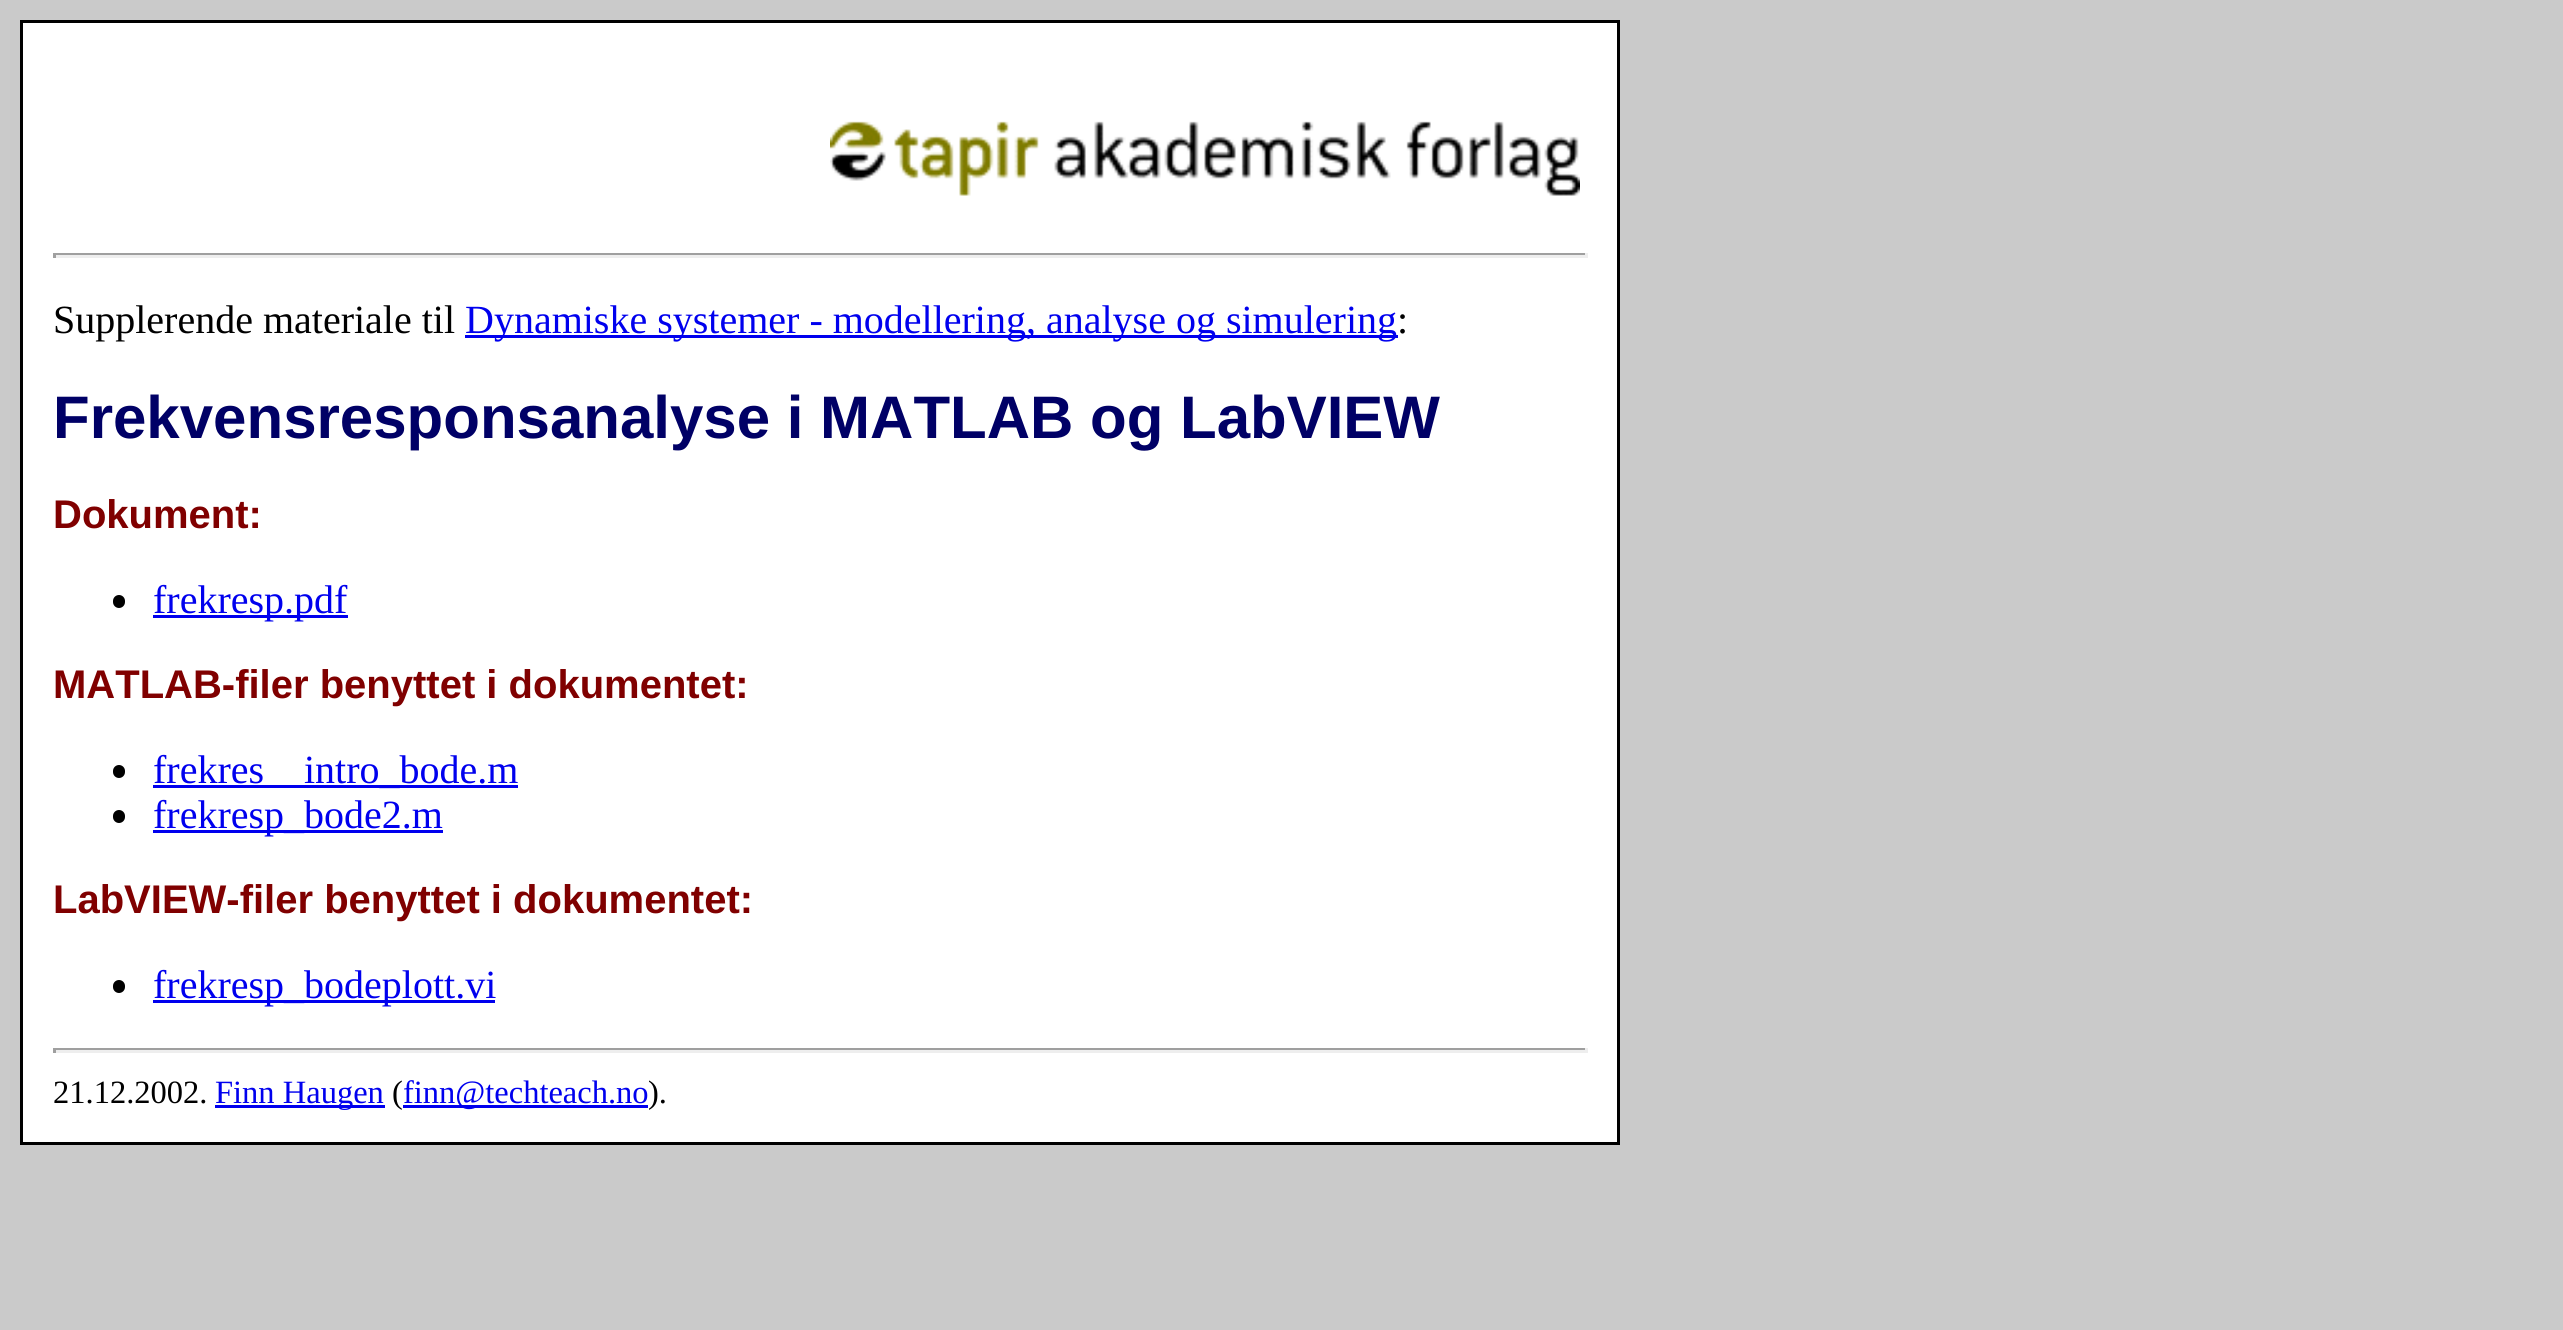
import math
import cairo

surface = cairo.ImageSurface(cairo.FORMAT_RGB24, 2563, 1330)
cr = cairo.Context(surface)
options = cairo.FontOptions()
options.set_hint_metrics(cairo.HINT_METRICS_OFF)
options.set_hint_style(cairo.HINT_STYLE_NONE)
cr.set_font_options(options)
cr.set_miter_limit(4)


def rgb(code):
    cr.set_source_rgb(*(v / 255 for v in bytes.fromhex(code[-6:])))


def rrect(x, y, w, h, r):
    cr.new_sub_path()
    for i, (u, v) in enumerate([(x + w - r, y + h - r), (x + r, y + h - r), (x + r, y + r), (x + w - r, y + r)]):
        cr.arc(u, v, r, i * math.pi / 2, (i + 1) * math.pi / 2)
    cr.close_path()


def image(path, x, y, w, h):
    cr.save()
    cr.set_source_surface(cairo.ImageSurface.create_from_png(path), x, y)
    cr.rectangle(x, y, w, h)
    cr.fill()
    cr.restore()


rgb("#cacaca")
cr.paint()
rgb("#ffffff")
cr.rectangle(21.5, 21.5, 1597, 1122)
cr.fill_preserve()
rgb("#000000")
cr.set_line_width(3)
cr.stroke()
image("img/1.png", 830, 121, 750, 75)
for x, y, w, h, color in [
    (53, 253, 1535, 2, "#9f9f9f"),
    (1585, 253, 3, 5, "#eeeeee"),
    (53, 255, 1535, 3, "#eeeeee"),
    (53, 253, 3, 5, "#9f9f9f"),
    (465, 335, 933, 3, "#0000ee"),
]:
    rgb(color)
    cr.rectangle(x, y, w, h)
    cr.fill()
rgb("#000000")
rrect(113, 595, 12, 13, 6)
cr.fill()
rgb("#0000ee")
cr.rectangle(153, 615, 195, 3)
cr.fill()
rgb("#000000")
rrect(113, 765, 12, 13, 6)
cr.fill()
rgb("#0000ee")
cr.rectangle(153, 785, 365, 3)
cr.fill()
rgb("#000000")
rrect(113, 810, 12, 13, 6)
cr.fill()
rgb("#0000ee")
cr.rectangle(153, 830, 290, 3)
cr.fill()
rgb("#000000")
rrect(113, 980, 12, 13, 6)
cr.fill()
for x, y, w, h, color in [
    (153, 1000, 342, 3, "#0000ee"),
    (53, 1048, 1535, 2, "#9f9f9f"),
    (1585, 1048, 3, 5, "#eeeeee"),
    (53, 1050, 1535, 3, "#eeeeee"),
    (53, 1048, 3, 5, "#9f9f9f"),
    (215, 1105, 170, 3, "#0000ee"),
    (403, 1105, 245, 3, "#0000ee"),
]:
    rgb(color)
    cr.rectangle(x, y, w, h)
    cr.fill()
cr.select_font_face("Liberation Serif")
cr.set_font_size(40)
rgb("#000000")
cr.move_to(53, 333)
cr.show_text("Supplerende materiale til")
rgb("#0000ee")
cr.move_to(465, 333)
cr.show_text("Dynamiske systemer - modellering, analyse og simulering")
rgb("#000000")
cr.move_to(1397, 333)
cr.show_text(":")
cr.select_font_face("Liberation Sans", cairo.FONT_SLANT_NORMAL, cairo.FONT_WEIGHT_BOLD)
cr.set_font_size(60)
rgb("#000066")
cr.move_to(53, 438)
cr.show_text("Frekvensresponsanalyse i MATLAB og LabVIEW")
cr.set_font_size(40)
rgb("#800000")
cr.move_to(53, 528)
cr.show_text("Dokument:")
cr.select_font_face("Liberation Serif")
rgb("#0000ee")
cr.move_to(153, 613)
cr.show_text("frekresp.pdf")
cr.select_font_face("Liberation Sans", cairo.FONT_SLANT_NORMAL, cairo.FONT_WEIGHT_BOLD)
rgb("#800000")
cr.move_to(53, 698)
cr.show_text("MATLAB-filer benyttet i dokumentet:")
cr.select_font_face("Liberation Serif")
rgb("#0000ee")
for x, y, s in [
    (153, 783, "frekres"),
    (304, 783, "intro_bode.m"),
    (153, 828, "frekresp_bode2.m"),
]:
    cr.move_to(x, y)
    cr.show_text(s)
cr.select_font_face("Liberation Sans", cairo.FONT_SLANT_NORMAL, cairo.FONT_WEIGHT_BOLD)
rgb("#800000")
cr.move_to(53, 913)
cr.show_text("LabVIEW-filer benyttet i dokumentet:")
cr.select_font_face("Liberation Serif")
rgb("#0000ee")
cr.move_to(153, 998)
cr.show_text("frekresp_bodeplott.vi")
cr.set_font_size(32.5)
rgb("#000000")
cr.move_to(53, 1103)
cr.show_text("21.12.2002.")
rgb("#0000ee")
cr.move_to(215, 1103)
cr.show_text("Finn Haugen")
rgb("#000000")
cr.move_to(392, 1103)
cr.show_text("(")
rgb("#0000ee")
cr.move_to(403, 1103)
cr.show_text("finn@techteach.no")
rgb("#000000")
cr.move_to(648, 1103)
cr.show_text(").")
surface.write_to_png("page.png")
